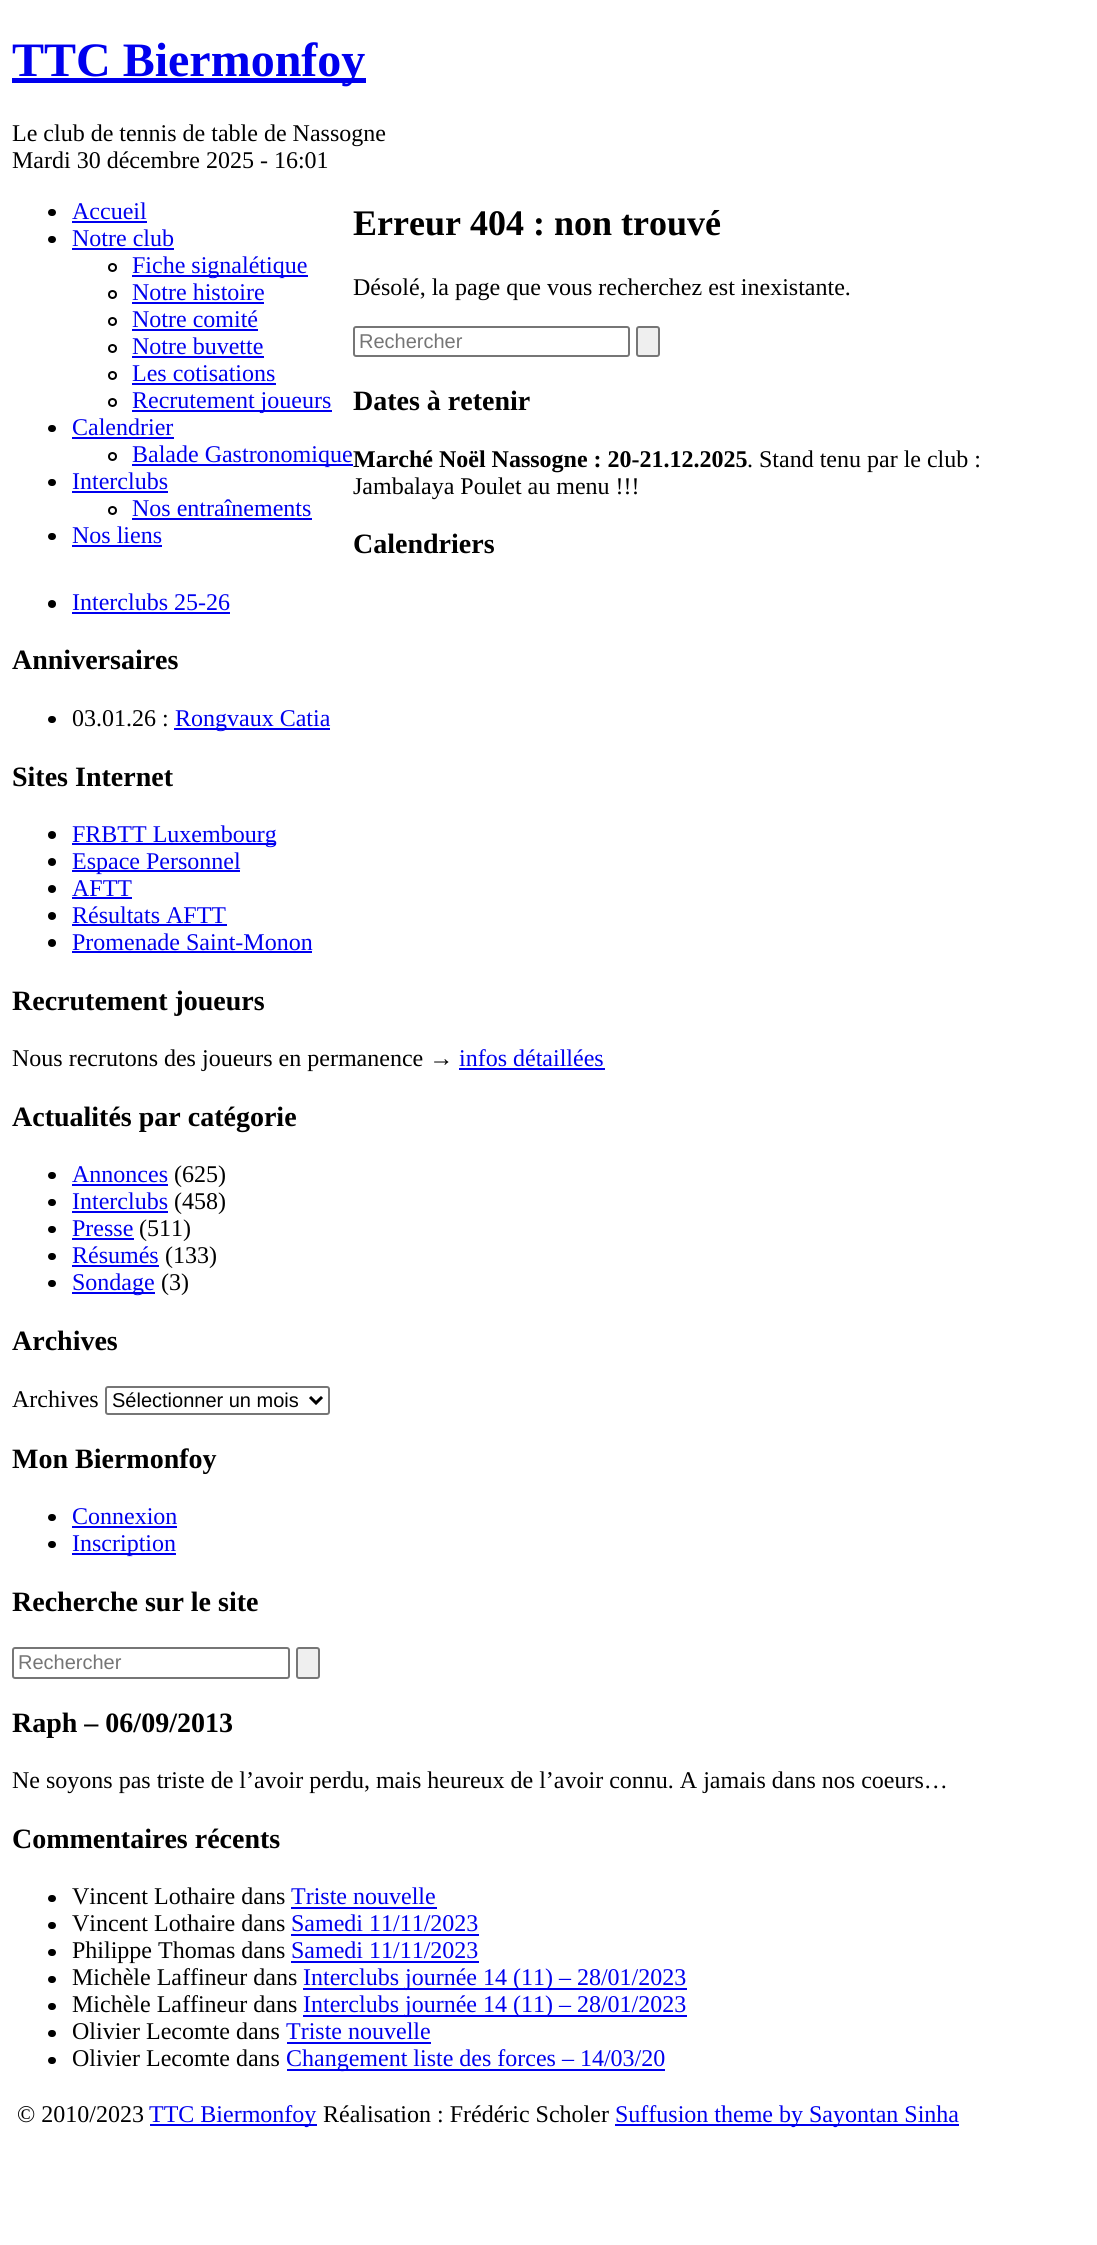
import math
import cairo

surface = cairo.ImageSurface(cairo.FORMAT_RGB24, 1097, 2245)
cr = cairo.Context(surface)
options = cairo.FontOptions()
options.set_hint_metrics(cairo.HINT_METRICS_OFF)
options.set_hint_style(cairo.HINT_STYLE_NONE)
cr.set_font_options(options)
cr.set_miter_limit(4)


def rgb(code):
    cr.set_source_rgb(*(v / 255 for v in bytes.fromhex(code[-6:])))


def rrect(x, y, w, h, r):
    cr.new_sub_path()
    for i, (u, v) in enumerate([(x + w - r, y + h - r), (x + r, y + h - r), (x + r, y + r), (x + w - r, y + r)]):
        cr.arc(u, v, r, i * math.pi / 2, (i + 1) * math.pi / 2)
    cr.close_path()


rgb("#ffffff")
cr.paint()
rgb("#0000ee")
cr.rectangle(12, 78, 354, 5)
cr.fill()
rgb("#000000")
rrect(48, 209, 8, 7, 3.5)
cr.fill()
rgb("#0000ee")
cr.rectangle(72, 221, 75, 2)
cr.fill()
rgb("#000000")
rrect(48, 236, 8, 7, 3.5)
cr.fill()
rgb("#0000ee")
cr.rectangle(72, 248, 102, 2)
cr.fill()
cr.arc(112.5, 267.5, 3.5, 0, 2 * math.pi)
rgb("#000000")
cr.stroke()
rgb("#0000ee")
cr.rectangle(132, 275, 176, 2)
cr.fill()
cr.arc(112.5, 294.5, 3.5, 0, 2 * math.pi)
rgb("#000000")
cr.stroke()
rgb("#0000ee")
cr.rectangle(132, 302, 132, 2)
cr.fill()
cr.arc(112.5, 321.5, 3.5, 0, 2 * math.pi)
rgb("#000000")
cr.stroke()
rgb("#0000ee")
cr.rectangle(132, 329, 126, 2)
cr.fill()
cr.arc(112.5, 348.5, 3.5, 0, 2 * math.pi)
rgb("#000000")
cr.stroke()
rgb("#0000ee")
cr.rectangle(132, 356, 132, 2)
cr.fill()
cr.arc(112.5, 375.5, 3.5, 0, 2 * math.pi)
rgb("#000000")
cr.stroke()
rgb("#0000ee")
cr.rectangle(132, 383, 144, 2)
cr.fill()
cr.arc(112.5, 402.5, 3.5, 0, 2 * math.pi)
rgb("#000000")
cr.stroke()
rgb("#0000ee")
cr.rectangle(132, 410, 200, 2)
cr.fill()
rgb("#000000")
rrect(48, 425, 8, 7, 3.5)
cr.fill()
rgb("#0000ee")
cr.rectangle(72, 437, 102, 2)
cr.fill()
cr.arc(112.5, 456.5, 3.5, 0, 2 * math.pi)
rgb("#000000")
cr.stroke()
rgb("#0000ee")
cr.rectangle(132, 464, 221, 2)
cr.fill()
rgb("#000000")
rrect(48, 479, 8, 7, 3.5)
cr.fill()
rgb("#0000ee")
cr.rectangle(72, 491, 96, 2)
cr.fill()
cr.arc(112.5, 510.5, 3.5, 0, 2 * math.pi)
rgb("#000000")
cr.stroke()
rgb("#0000ee")
cr.rectangle(132, 518, 180, 2)
cr.fill()
rgb("#000000")
rrect(48, 533, 8, 7, 3.5)
cr.fill()
rgb("#0000ee")
cr.rectangle(72, 545, 90, 2)
cr.fill()
rrect(354, 327, 275, 29, 2)
rgb("#767676")
cr.stroke()
rgb("#efefef")
rrect(637, 327, 22, 29, 2)
cr.fill_preserve()
rgb("#767676")
cr.stroke()
rgb("#000000")
cr.arc(52, 604, 4, 0, 2 * math.pi)
cr.fill()
rgb("#0000ee")
cr.rectangle(72, 612, 158, 2)
cr.fill()
rgb("#000000")
rrect(48, 716, 8, 7, 3.5)
cr.fill()
rgb("#0000ee")
cr.rectangle(174, 728, 156, 2)
cr.fill()
rgb("#000000")
cr.arc(52, 835, 4, 0, 2 * math.pi)
cr.fill()
rgb("#0000ee")
cr.rectangle(72, 843, 204, 2)
cr.fill()
rgb("#000000")
cr.arc(52, 862, 4, 0, 2 * math.pi)
cr.fill()
rgb("#0000ee")
cr.rectangle(72, 870, 168, 2)
cr.fill()
rgb("#000000")
cr.arc(52, 889, 4, 0, 2 * math.pi)
cr.fill()
rgb("#0000ee")
cr.rectangle(72, 897, 60, 2)
cr.fill()
rgb("#000000")
cr.arc(52, 916, 4, 0, 2 * math.pi)
cr.fill()
rgb("#0000ee")
cr.rectangle(72, 924, 155, 2)
cr.fill()
rgb("#000000")
cr.arc(52, 943, 4, 0, 2 * math.pi)
cr.fill()
rgb("#0000ee")
cr.rectangle(72, 951, 240, 2)
cr.fill()
cr.rectangle(459, 1068, 146, 2)
cr.fill()
rgb("#000000")
rrect(48, 1172, 8, 7, 3.5)
cr.fill()
rgb("#0000ee")
cr.rectangle(72, 1184, 96, 2)
cr.fill()
rgb("#000000")
rrect(48, 1199, 8, 7, 3.5)
cr.fill()
rgb("#0000ee")
cr.rectangle(72, 1211, 96, 2)
cr.fill()
rgb("#000000")
rrect(48, 1226, 8, 7, 3.5)
cr.fill()
rgb("#0000ee")
cr.rectangle(72, 1238, 62, 2)
cr.fill()
rgb("#000000")
rrect(48, 1253, 8, 7, 3.5)
cr.fill()
rgb("#0000ee")
cr.rectangle(72, 1265, 87, 2)
cr.fill()
rgb("#000000")
rrect(48, 1280, 8, 7, 3.5)
cr.fill()
rgb("#0000ee")
cr.rectangle(72, 1292, 83, 2)
cr.fill()
rrect(106, 1387, 223, 27, 2)
rgb("#767676")
cr.stroke()
cr.new_path()
cr.move_to(310, 1397)
cr.line_to(316, 1403)
cr.line_to(322, 1397)
rgb("#000000")
cr.set_line_width(3)
cr.stroke()
rrect(48, 1514, 8, 7, 3.5)
cr.fill()
rgb("#0000ee")
cr.rectangle(72, 1526, 105, 2)
cr.fill()
rgb("#000000")
rrect(48, 1541, 8, 7, 3.5)
cr.fill()
rgb("#0000ee")
cr.rectangle(72, 1553, 104, 2)
cr.fill()
rrect(13, 1648, 276, 30, 2)
rgb("#767676")
cr.set_line_width(2)
cr.stroke()
rgb("#efefef")
rrect(297, 1648, 22, 30, 2)
cr.fill_preserve()
rgb("#767676")
cr.stroke()
rgb("#000000")
rrect(48, 1895, 8, 7, 3.5)
cr.fill()
rgb("#0000ee")
cr.rectangle(291, 1907, 146, 2)
cr.fill()
rgb("#000000")
rrect(48, 1922, 8, 7, 3.5)
cr.fill()
rgb("#0000ee")
cr.rectangle(291, 1934, 188, 2)
cr.fill()
rgb("#000000")
rrect(48, 1949, 8, 7, 3.5)
cr.fill()
rgb("#0000ee")
cr.rectangle(291, 1961, 188, 2)
cr.fill()
rgb("#000000")
rrect(48, 1976, 8, 7, 3.5)
cr.fill()
rgb("#0000ee")
cr.rectangle(303, 1988, 384, 2)
cr.fill()
rgb("#000000")
rrect(48, 2003, 8, 7, 3.5)
cr.fill()
rgb("#0000ee")
cr.rectangle(303, 2015, 384, 2)
cr.fill()
rgb("#000000")
rrect(48, 2030, 8, 7, 3.5)
cr.fill()
rgb("#0000ee")
cr.rectangle(287, 2042, 144, 2)
cr.fill()
rgb("#000000")
rrect(48, 2057, 8, 7, 3.5)
cr.fill()
for x, y, w, h, color in [
    (287, 2069, 378, 2, "#0000ee"),
    (150, 2124, 167, 2, "#0000ee"),
    (615, 2124, 344, 2, "#0000ee"),
]:
    rgb(color)
    cr.rectangle(x, y, w, h)
    cr.fill()
cr.select_font_face("Liberation Serif", cairo.FONT_SLANT_NORMAL, cairo.FONT_WEIGHT_BOLD)
cr.set_font_size(48)
cr.move_to(12, 76)
cr.show_text("TTC Biermonfoy")
cr.select_font_face("Liberation Serif")
cr.set_font_size(24)
rgb("#000000")
cr.move_to(12, 141)
cr.show_text("Le club de tennis de table de Nassogne")
cr.move_to(12, 168)
cr.show_text("Mardi 30 décembre 2025 - 16:01")
rgb("#0000ee")
for x, y, s in [
    (72, 219, "Accueil"),
    (72, 246, "Notre club"),
    (132, 273, "Fiche signalétique"),
    (132, 300, "Notre histoire"),
    (132, 327, "Notre comité"),
    (132, 354, "Notre buvette"),
    (132, 381, "Les cotisations"),
    (132, 408, "Recrutement joueurs"),
    (72, 435, "Calendrier"),
    (132, 462, "Balade Gastronomique"),
    (72, 489, "Interclubs"),
    (132, 516, "Nos entraînements"),
    (72, 543, "Nos liens"),
]:
    cr.move_to(x, y)
    cr.show_text(s)
cr.select_font_face("Liberation Serif", cairo.FONT_SLANT_NORMAL, cairo.FONT_WEIGHT_BOLD)
cr.set_font_size(36)
rgb("#000000")
cr.move_to(353, 235)
cr.show_text("Erreur 404 : non trouvé")
cr.select_font_face("Liberation Serif")
cr.set_font_size(24)
cr.move_to(353, 295)
cr.show_text("Désolé, la page que vous recherchez est inexistante.")
cr.select_font_face("Liberation Sans")
cr.set_font_size(20)
rgb("#757575")
cr.move_to(359, 348)
cr.show_text("Rechercher")
cr.select_font_face("Liberation Serif", cairo.FONT_SLANT_NORMAL, cairo.FONT_WEIGHT_BOLD)
cr.set_font_size(28)
rgb("#000000")
cr.move_to(353, 410)
cr.show_text("Dates à retenir")
cr.set_font_size(24)
cr.move_to(353, 467)
cr.show_text("Marché Noël Nassogne : 20-21.12.2025")
cr.select_font_face("Liberation Serif")
cr.move_to(747, 467)
cr.show_text(". Stand tenu par le club :")
cr.move_to(353, 494)
cr.show_text("Jambalaya Poulet au menu !!!")
cr.select_font_face("Liberation Serif", cairo.FONT_SLANT_NORMAL, cairo.FONT_WEIGHT_BOLD)
cr.set_font_size(28)
cr.move_to(353, 553)
cr.show_text("Calendriers")
cr.select_font_face("Liberation Serif")
cr.set_font_size(24)
rgb("#0000ee")
cr.move_to(72, 610)
cr.show_text("Interclubs 25-26")
cr.select_font_face("Liberation Serif", cairo.FONT_SLANT_NORMAL, cairo.FONT_WEIGHT_BOLD)
cr.set_font_size(28)
rgb("#000000")
cr.move_to(12, 669)
cr.show_text("Anniversaires")
cr.select_font_face("Liberation Serif")
cr.set_font_size(24)
cr.move_to(72, 726)
cr.show_text("03.01.26 :")
rgb("#0000ee")
cr.move_to(175, 726)
cr.show_text("Rongvaux Catia")
cr.select_font_face("Liberation Serif", cairo.FONT_SLANT_NORMAL, cairo.FONT_WEIGHT_BOLD)
cr.set_font_size(28)
rgb("#000000")
cr.move_to(12, 786)
cr.show_text("Sites Internet")
cr.select_font_face("Liberation Serif")
cr.set_font_size(24)
rgb("#0000ee")
for x, y, s in [
    (72, 842, "FRBTT Luxembourg"),
    (72, 869, "Espace Personnel"),
    (72, 896, "AFTT"),
    (72, 923, "Résultats AFTT"),
    (72, 950, "Promenade Saint-Monon"),
]:
    cr.move_to(x, y)
    cr.show_text(s)
cr.select_font_face("Liberation Serif", cairo.FONT_SLANT_NORMAL, cairo.FONT_WEIGHT_BOLD)
cr.set_font_size(28)
rgb("#000000")
cr.move_to(12, 1010)
cr.show_text("Recrutement joueurs")
cr.select_font_face("Liberation Serif")
cr.set_font_size(24)
cr.move_to(12, 1066)
cr.show_text("Nous recrutons des joueurs en permanence →")
rgb("#0000ee")
cr.move_to(459, 1066)
cr.show_text("infos détaillées")
cr.select_font_face("Liberation Serif", cairo.FONT_SLANT_NORMAL, cairo.FONT_WEIGHT_BOLD)
cr.set_font_size(28)
rgb("#000000")
cr.move_to(12, 1126)
cr.show_text("Actualités par catégorie")
cr.select_font_face("Liberation Serif")
cr.set_font_size(24)
rgb("#0000ee")
cr.move_to(72, 1182)
cr.show_text("Annonces")
rgb("#000000")
cr.move_to(174, 1182)
cr.show_text("(625)")
rgb("#0000ee")
cr.move_to(72, 1209)
cr.show_text("Interclubs")
rgb("#000000")
cr.move_to(174, 1209)
cr.show_text("(458)")
rgb("#0000ee")
cr.move_to(72, 1236)
cr.show_text("Presse")
rgb("#000000")
cr.move_to(139, 1236)
cr.show_text("(511)")
rgb("#0000ee")
cr.move_to(72, 1263)
cr.show_text("Résumés")
rgb("#000000")
cr.move_to(165, 1263)
cr.show_text("(133)")
rgb("#0000ee")
cr.move_to(72, 1290)
cr.show_text("Sondage")
rgb("#000000")
cr.move_to(161, 1290)
cr.show_text("(3)")
cr.select_font_face("Liberation Serif", cairo.FONT_SLANT_NORMAL, cairo.FONT_WEIGHT_BOLD)
cr.set_font_size(28)
cr.move_to(12, 1350)
cr.show_text("Archives")
cr.select_font_face("Liberation Serif")
cr.set_font_size(24)
cr.move_to(12, 1407)
cr.show_text("Archives")
cr.select_font_face("Liberation Sans")
cr.set_font_size(20)
cr.move_to(112, 1407)
cr.show_text("Sélectionner un mois")
cr.select_font_face("Liberation Serif", cairo.FONT_SLANT_NORMAL, cairo.FONT_WEIGHT_BOLD)
cr.set_font_size(28)
cr.move_to(12, 1468)
cr.show_text("Mon Biermonfoy")
cr.select_font_face("Liberation Serif")
cr.set_font_size(24)
rgb("#0000ee")
cr.move_to(72, 1524)
cr.show_text("Connexion")
cr.move_to(72, 1551)
cr.show_text("Inscription")
cr.select_font_face("Liberation Serif", cairo.FONT_SLANT_NORMAL, cairo.FONT_WEIGHT_BOLD)
cr.set_font_size(28)
rgb("#000000")
cr.move_to(12, 1611)
cr.show_text("Recherche sur le site")
cr.select_font_face("Liberation Sans")
cr.set_font_size(20)
rgb("#757575")
cr.move_to(18, 1669)
cr.show_text("Rechercher")
cr.select_font_face("Liberation Serif", cairo.FONT_SLANT_NORMAL, cairo.FONT_WEIGHT_BOLD)
cr.set_font_size(28)
rgb("#000000")
cr.move_to(12, 1732)
cr.show_text("Raph – 06/09/2013")
cr.select_font_face("Liberation Serif")
cr.set_font_size(24)
cr.move_to(12, 1788)
cr.show_text("Ne soyons pas triste de l’avoir perdu, mais heureux de l’avoir connu. A jamais dans nos coeurs…")
cr.select_font_face("Liberation Serif", cairo.FONT_SLANT_NORMAL, cairo.FONT_WEIGHT_BOLD)
cr.set_font_size(28)
cr.move_to(12, 1848)
cr.show_text("Commentaires récents")
cr.select_font_face("Liberation Serif")
cr.set_font_size(24)
cr.move_to(72, 1904)
cr.show_text("Vincent Lothaire dans")
rgb("#0000ee")
cr.move_to(291, 1904)
cr.show_text("Triste nouvelle")
rgb("#000000")
cr.move_to(72, 1931)
cr.show_text("Vincent Lothaire dans")
rgb("#0000ee")
cr.move_to(291, 1931)
cr.show_text("Samedi 11/11/2023")
rgb("#000000")
cr.move_to(72, 1958)
cr.show_text("Philippe Thomas dans")
rgb("#0000ee")
cr.move_to(291, 1958)
cr.show_text("Samedi 11/11/2023")
rgb("#000000")
cr.move_to(72, 1985)
cr.show_text("Michèle Laffineur dans")
rgb("#0000ee")
cr.move_to(303, 1985)
cr.show_text("Interclubs journée 14 (11) – 28/01/2023")
rgb("#000000")
cr.move_to(72, 2012)
cr.show_text("Michèle Laffineur dans")
rgb("#0000ee")
cr.move_to(303, 2012)
cr.show_text("Interclubs journée 14 (11) – 28/01/2023")
rgb("#000000")
cr.move_to(72, 2039)
cr.show_text("Olivier Lecomte dans")
rgb("#0000ee")
cr.move_to(286, 2039)
cr.show_text("Triste nouvelle")
rgb("#000000")
cr.move_to(72, 2066)
cr.show_text("Olivier Lecomte dans")
rgb("#0000ee")
cr.move_to(286, 2066)
cr.show_text("Changement liste des forces – 14/03/20")
rgb("#000000")
cr.move_to(17, 2122)
cr.show_text("© 2010/2023")
rgb("#0000ee")
cr.move_to(149, 2122)
cr.show_text("TTC Biermonfoy")
rgb("#000000")
cr.move_to(323, 2122)
cr.show_text("Réalisation : Frédéric Scholer")
rgb("#0000ee")
cr.move_to(615, 2122)
cr.show_text("Suffusion theme by Sayontan Sinha")
surface.write_to_png("page.png")
